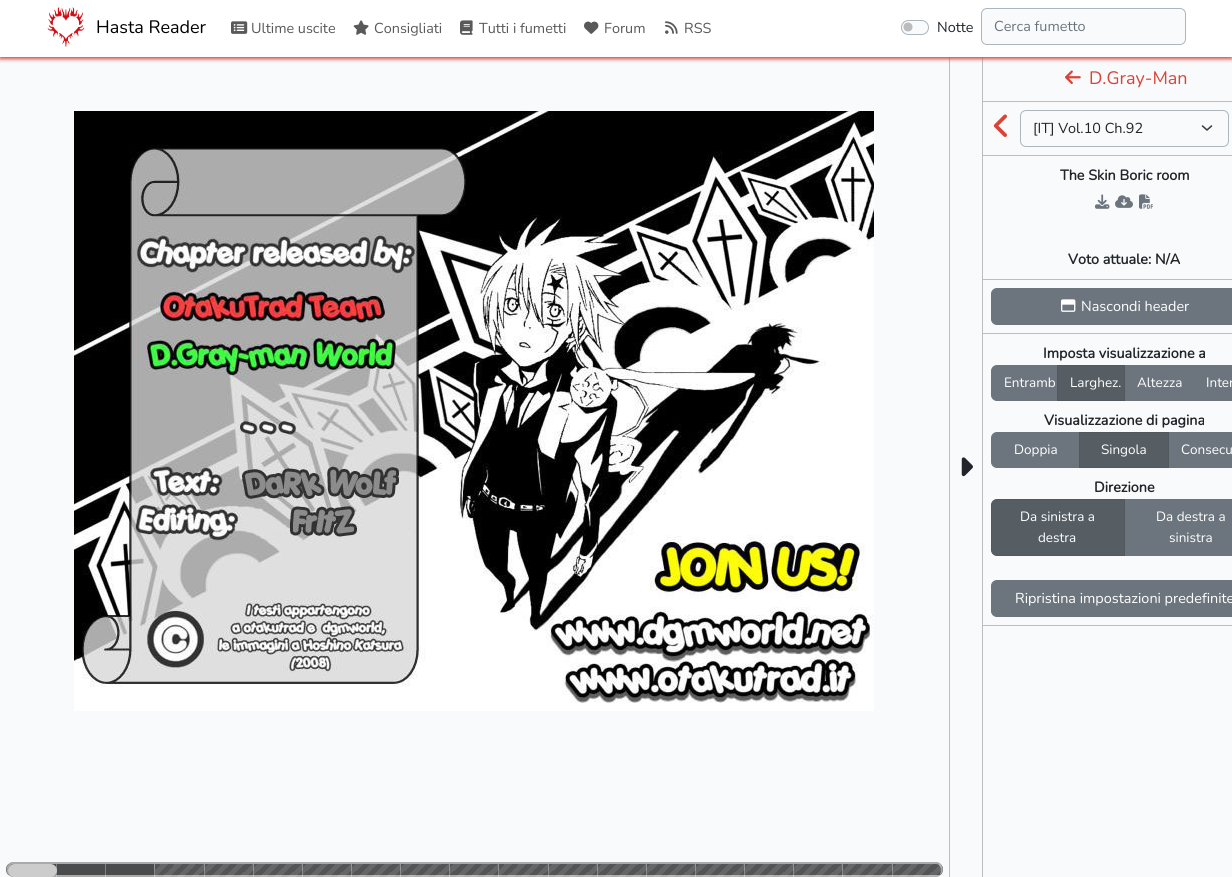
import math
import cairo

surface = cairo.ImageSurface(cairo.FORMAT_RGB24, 1232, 877)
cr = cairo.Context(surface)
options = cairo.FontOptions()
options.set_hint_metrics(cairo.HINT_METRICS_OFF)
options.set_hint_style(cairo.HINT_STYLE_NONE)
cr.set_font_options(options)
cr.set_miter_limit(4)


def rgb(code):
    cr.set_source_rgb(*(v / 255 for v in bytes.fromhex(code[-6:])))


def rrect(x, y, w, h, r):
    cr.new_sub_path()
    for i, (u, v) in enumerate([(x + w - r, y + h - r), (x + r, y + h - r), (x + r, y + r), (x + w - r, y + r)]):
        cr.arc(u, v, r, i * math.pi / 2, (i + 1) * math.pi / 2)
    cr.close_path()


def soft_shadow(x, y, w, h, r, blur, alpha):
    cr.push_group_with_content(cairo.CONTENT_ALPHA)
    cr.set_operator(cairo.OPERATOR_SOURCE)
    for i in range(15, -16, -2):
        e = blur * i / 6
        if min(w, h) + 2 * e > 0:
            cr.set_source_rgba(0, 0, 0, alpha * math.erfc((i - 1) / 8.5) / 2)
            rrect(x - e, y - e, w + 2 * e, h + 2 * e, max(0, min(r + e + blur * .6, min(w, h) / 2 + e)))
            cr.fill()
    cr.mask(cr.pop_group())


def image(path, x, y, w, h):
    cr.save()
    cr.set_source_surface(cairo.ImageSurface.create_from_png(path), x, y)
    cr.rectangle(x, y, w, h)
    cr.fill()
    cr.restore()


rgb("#f8fafc")
cr.paint()
rgb("#bcbdbe")
cr.rectangle(982, 56, 1, 821)
cr.fill()
cr.rectangle(949, 56, 1, 821)
cr.fill()
rgb("#d84437")
soft_shadow(0, 2, 1232, 57, 0, 2, 1)
rgb("#ffffff")
cr.rectangle(0, 0, 1232, 57)
cr.fill()
image("img/1.png", 47, 7, 38, 40)
image("img/2.png", 231, 21, 17, 13)
image("img/3.png", 353, 20, 16, 15)
image("img/4.png", 460, 20, 13, 15)
image("img/5.png", 584, 21, 15, 13)
image("img/6.png", 665, 21, 13, 13)
rgb("#f8fafc")
rrect(901, 20, 28, 15, 7.5)
cr.fill()
rgb("#babcbd")
cr.arc(908, 27, 4.5, 0, 2 * math.pi)
cr.fill()
rrect(901.5, 20.5, 27, 14, 7)
rgb("#adb5bd")
cr.set_line_width(1)
cr.stroke()
rgb("#f8fafc")
rrect(981.5, 8.5, 204, 36, 5.5)
cr.fill_preserve()
rgb("#adb5bd")
cr.stroke()
rgb("#ffffff")
cr.rectangle(74, 703, 800, 8)
cr.fill()
image("img/7.png", 74, 111, 800, 592)
cr.save()
rrect(6, 862, 937, 15, 7.5)
cr.clip()
rgb("#aaaaaa")
cr.rectangle(6, 862, 937, 2)
cr.fill()
cr.rectangle(6, 875, 937, 2)
cr.fill()
cr.restore()
for x, y, w, h, color in [
    (892, 875, 1, 2, "#c4c4c4"),
    (842, 875, 1, 2, "#c4c4c4"),
    (793, 875, 1, 2, "#c4c4c4"),
    (744, 875, 1, 2, "#c4c4c4"),
    (695, 875, 1, 2, "#c4c4c4"),
    (646, 875, 1, 2, "#c4c4c4"),
    (597, 875, 1, 2, "#c4c4c4"),
    (548, 875, 1, 2, "#c4c4c4"),
    (498, 875, 1, 2, "#c4c4c4"),
    (449, 875, 1, 2, "#c4c4c4"),
    (400, 875, 1, 2, "#c4c4c4"),
    (351, 875, 1, 2, "#c4c4c4"),
    (302, 875, 1, 2, "#c4c4c4"),
    (253, 875, 1, 2, "#c4c4c4"),
    (204, 875, 1, 2, "#c4c4c4"),
    (154, 875, 1, 2, "#c4c4c4"),
    (105, 875, 1, 2, "#c4c4c4"),
    (56, 875, 1, 2, "#c4c4c4"),
]:
    rgb(color)
    cr.rectangle(x, y, w, h)
    cr.fill()
cr.save()
rrect(6, 862, 937, 15, 7.5)
cr.clip()
rgb("#4a4b4c")
cr.rectangle(6, 864, 937, 11)
cr.fill()
cr.restore()
for x, y, w, h, color in [
    (892, 864, 1, 11, "#808182"),
    (842, 864, 1, 11, "#808182"),
    (793, 864, 1, 11, "#808182"),
    (744, 864, 1, 11, "#808182"),
    (695, 864, 1, 11, "#808182"),
    (646, 864, 1, 11, "#808182"),
    (597, 864, 1, 11, "#808182"),
    (548, 864, 1, 11, "#808182"),
    (498, 864, 1, 11, "#808182"),
    (449, 864, 1, 11, "#808182"),
    (400, 864, 1, 11, "#808182"),
    (351, 864, 1, 11, "#808182"),
    (302, 864, 1, 11, "#808182"),
    (253, 864, 1, 11, "#808182"),
    (204, 864, 1, 11, "#808182"),
    (154, 864, 1, 11, "#808182"),
    (105, 864, 1, 11, "#808182"),
    (56, 864, 1, 11, "#808182"),
]:
    rgb(color)
    cr.rectangle(x, y, w, h)
    cr.fill()
rgb("#aaaaaa")
cr.set_fill_rule(cairo.FILL_RULE_EVEN_ODD)
cr.new_path()
cr.move_to(14, 862)
cr.line_to(936, 862)
cr.curve_to(943, 862, 946, 873, 938, 876)
cr.line_to(936, 877)
cr.line_to(14, 877)
cr.curve_to(4, 877, 4, 862, 14, 862)
cr.close_path()
cr.move_to(14, 864)
cr.line_to(936, 864)
cr.curve_to(943, 864, 942, 877, 936, 877)
cr.line_to(14, 877)
cr.curve_to(7, 877, 6, 864, 14, 864)
cr.close_path()
cr.fill()
rgb("#cccccc")
rrect(8, 864, 49, 13, 6.5)
cr.fill()
gradient = cairo.LinearGradient(146, 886, 111, 851)
gradient.add_color_stop_rgba(0, 1, 1, 1, 0.05)
gradient.add_color_stop_rgba(0.1, 1, 1, 1, 0.05)
gradient.add_color_stop_rgba(0.1, 1, 1, 1, 0.15)
gradient.add_color_stop_rgba(0.2, 1, 1, 1, 0.15)
gradient.add_color_stop_rgba(0.2, 1, 1, 1, 0.05)
gradient.add_color_stop_rgba(0.3, 1, 1, 1, 0.05)
gradient.add_color_stop_rgba(0.3, 1, 1, 1, 0.15)
gradient.add_color_stop_rgba(0.4, 1, 1, 1, 0.15)
gradient.add_color_stop_rgba(0.4, 1, 1, 1, 0.05)
gradient.add_color_stop_rgba(0.5, 1, 1, 1, 0.05)
gradient.add_color_stop_rgba(0.5, 1, 1, 1, 0.15)
gradient.add_color_stop_rgba(0.6, 1, 1, 1, 0.15)
gradient.add_color_stop_rgba(0.6, 1, 1, 1, 0.05)
gradient.add_color_stop_rgba(0.7, 1, 1, 1, 0.05)
gradient.add_color_stop_rgba(0.7, 1, 1, 1, 0.15)
gradient.add_color_stop_rgba(0.8, 1, 1, 1, 0.15)
gradient.add_color_stop_rgba(0.8, 1, 1, 1, 0.05)
gradient.add_color_stop_rgba(0.9, 1, 1, 1, 0.05)
gradient.add_color_stop_rgba(0.9, 1, 1, 1, 0.15)
gradient.add_color_stop_rgba(1, 1, 1, 1, 0.15)
cr.set_source(gradient)
cr.rectangle(154, 864, 1, 13)
cr.fill()
gradient = cairo.LinearGradient(195, 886, 160, 851)
gradient.add_color_stop_rgba(0, 1, 1, 1, 0.05)
gradient.add_color_stop_rgba(0.1, 1, 1, 1, 0.05)
gradient.add_color_stop_rgba(0.1, 1, 1, 1, 0.15)
gradient.add_color_stop_rgba(0.2, 1, 1, 1, 0.15)
gradient.add_color_stop_rgba(0.2, 1, 1, 1, 0.05)
gradient.add_color_stop_rgba(0.3, 1, 1, 1, 0.05)
gradient.add_color_stop_rgba(0.3, 1, 1, 1, 0.15)
gradient.add_color_stop_rgba(0.4, 1, 1, 1, 0.15)
gradient.add_color_stop_rgba(0.4, 1, 1, 1, 0.05)
gradient.add_color_stop_rgba(0.5, 1, 1, 1, 0.05)
gradient.add_color_stop_rgba(0.5, 1, 1, 1, 0.15)
gradient.add_color_stop_rgba(0.6, 1, 1, 1, 0.15)
gradient.add_color_stop_rgba(0.6, 1, 1, 1, 0.05)
gradient.add_color_stop_rgba(0.7, 1, 1, 1, 0.05)
gradient.add_color_stop_rgba(0.7, 1, 1, 1, 0.15)
gradient.add_color_stop_rgba(0.8, 1, 1, 1, 0.15)
gradient.add_color_stop_rgba(0.8, 1, 1, 1, 0.05)
gradient.add_color_stop_rgba(0.9, 1, 1, 1, 0.05)
gradient.add_color_stop_rgba(0.9, 1, 1, 1, 0.15)
gradient.add_color_stop_rgba(1, 1, 1, 1, 0.15)
cr.set_source(gradient)
cr.rectangle(155, 864, 49, 13)
cr.fill()
gradient = cairo.LinearGradient(196, 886, 161, 850)
gradient.add_color_stop_rgba(0, 1, 1, 1, 0.05)
gradient.add_color_stop_rgba(0.1, 1, 1, 1, 0.05)
gradient.add_color_stop_rgba(0.1, 1, 1, 1, 0.15)
gradient.add_color_stop_rgba(0.2, 1, 1, 1, 0.15)
gradient.add_color_stop_rgba(0.2, 1, 1, 1, 0.05)
gradient.add_color_stop_rgba(0.3, 1, 1, 1, 0.05)
gradient.add_color_stop_rgba(0.3, 1, 1, 1, 0.15)
gradient.add_color_stop_rgba(0.4, 1, 1, 1, 0.15)
gradient.add_color_stop_rgba(0.4, 1, 1, 1, 0.05)
gradient.add_color_stop_rgba(0.5, 1, 1, 1, 0.05)
gradient.add_color_stop_rgba(0.5, 1, 1, 1, 0.15)
gradient.add_color_stop_rgba(0.6, 1, 1, 1, 0.15)
gradient.add_color_stop_rgba(0.6, 1, 1, 1, 0.05)
gradient.add_color_stop_rgba(0.7, 1, 1, 1, 0.05)
gradient.add_color_stop_rgba(0.7, 1, 1, 1, 0.15)
gradient.add_color_stop_rgba(0.8, 1, 1, 1, 0.15)
gradient.add_color_stop_rgba(0.8, 1, 1, 1, 0.05)
gradient.add_color_stop_rgba(0.9, 1, 1, 1, 0.05)
gradient.add_color_stop_rgba(0.9, 1, 1, 1, 0.15)
gradient.add_color_stop_rgba(1, 1, 1, 1, 0.15)
cr.set_source(gradient)
cr.rectangle(204, 864, 1, 13)
cr.fill()
gradient = cairo.LinearGradient(244, 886, 209, 850)
gradient.add_color_stop_rgba(0, 1, 1, 1, 0.05)
gradient.add_color_stop_rgba(0.1, 1, 1, 1, 0.05)
gradient.add_color_stop_rgba(0.1, 1, 1, 1, 0.15)
gradient.add_color_stop_rgba(0.2, 1, 1, 1, 0.15)
gradient.add_color_stop_rgba(0.2, 1, 1, 1, 0.05)
gradient.add_color_stop_rgba(0.3, 1, 1, 1, 0.05)
gradient.add_color_stop_rgba(0.3, 1, 1, 1, 0.15)
gradient.add_color_stop_rgba(0.4, 1, 1, 1, 0.15)
gradient.add_color_stop_rgba(0.4, 1, 1, 1, 0.05)
gradient.add_color_stop_rgba(0.5, 1, 1, 1, 0.05)
gradient.add_color_stop_rgba(0.5, 1, 1, 1, 0.15)
gradient.add_color_stop_rgba(0.6, 1, 1, 1, 0.15)
gradient.add_color_stop_rgba(0.6, 1, 1, 1, 0.05)
gradient.add_color_stop_rgba(0.7, 1, 1, 1, 0.05)
gradient.add_color_stop_rgba(0.7, 1, 1, 1, 0.15)
gradient.add_color_stop_rgba(0.8, 1, 1, 1, 0.15)
gradient.add_color_stop_rgba(0.8, 1, 1, 1, 0.05)
gradient.add_color_stop_rgba(0.9, 1, 1, 1, 0.05)
gradient.add_color_stop_rgba(0.9, 1, 1, 1, 0.15)
gradient.add_color_stop_rgba(1, 1, 1, 1, 0.15)
cr.set_source(gradient)
cr.rectangle(205, 864, 48, 13)
cr.fill()
gradient = cairo.LinearGradient(245, 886, 210, 850)
gradient.add_color_stop_rgba(0, 1, 1, 1, 0.05)
gradient.add_color_stop_rgba(0.1, 1, 1, 1, 0.05)
gradient.add_color_stop_rgba(0.1, 1, 1, 1, 0.15)
gradient.add_color_stop_rgba(0.2, 1, 1, 1, 0.15)
gradient.add_color_stop_rgba(0.2, 1, 1, 1, 0.05)
gradient.add_color_stop_rgba(0.3, 1, 1, 1, 0.05)
gradient.add_color_stop_rgba(0.3, 1, 1, 1, 0.15)
gradient.add_color_stop_rgba(0.4, 1, 1, 1, 0.15)
gradient.add_color_stop_rgba(0.4, 1, 1, 1, 0.05)
gradient.add_color_stop_rgba(0.5, 1, 1, 1, 0.05)
gradient.add_color_stop_rgba(0.5, 1, 1, 1, 0.15)
gradient.add_color_stop_rgba(0.6, 1, 1, 1, 0.15)
gradient.add_color_stop_rgba(0.6, 1, 1, 1, 0.05)
gradient.add_color_stop_rgba(0.7, 1, 1, 1, 0.05)
gradient.add_color_stop_rgba(0.7, 1, 1, 1, 0.15)
gradient.add_color_stop_rgba(0.8, 1, 1, 1, 0.15)
gradient.add_color_stop_rgba(0.8, 1, 1, 1, 0.05)
gradient.add_color_stop_rgba(0.9, 1, 1, 1, 0.05)
gradient.add_color_stop_rgba(0.9, 1, 1, 1, 0.15)
gradient.add_color_stop_rgba(1, 1, 1, 1, 0.15)
cr.set_source(gradient)
cr.rectangle(253, 864, 1, 13)
cr.fill()
gradient = cairo.LinearGradient(293, 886, 258, 850)
gradient.add_color_stop_rgba(0, 1, 1, 1, 0.05)
gradient.add_color_stop_rgba(0.1, 1, 1, 1, 0.05)
gradient.add_color_stop_rgba(0.1, 1, 1, 1, 0.15)
gradient.add_color_stop_rgba(0.2, 1, 1, 1, 0.15)
gradient.add_color_stop_rgba(0.2, 1, 1, 1, 0.05)
gradient.add_color_stop_rgba(0.3, 1, 1, 1, 0.05)
gradient.add_color_stop_rgba(0.3, 1, 1, 1, 0.15)
gradient.add_color_stop_rgba(0.4, 1, 1, 1, 0.15)
gradient.add_color_stop_rgba(0.4, 1, 1, 1, 0.05)
gradient.add_color_stop_rgba(0.5, 1, 1, 1, 0.05)
gradient.add_color_stop_rgba(0.5, 1, 1, 1, 0.15)
gradient.add_color_stop_rgba(0.6, 1, 1, 1, 0.15)
gradient.add_color_stop_rgba(0.6, 1, 1, 1, 0.05)
gradient.add_color_stop_rgba(0.7, 1, 1, 1, 0.05)
gradient.add_color_stop_rgba(0.7, 1, 1, 1, 0.15)
gradient.add_color_stop_rgba(0.8, 1, 1, 1, 0.15)
gradient.add_color_stop_rgba(0.8, 1, 1, 1, 0.05)
gradient.add_color_stop_rgba(0.9, 1, 1, 1, 0.05)
gradient.add_color_stop_rgba(0.9, 1, 1, 1, 0.15)
gradient.add_color_stop_rgba(1, 1, 1, 1, 0.15)
cr.set_source(gradient)
cr.rectangle(254, 864, 48, 13)
cr.fill()
gradient = cairo.LinearGradient(294, 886, 259, 850)
gradient.add_color_stop_rgba(0, 1, 1, 1, 0.05)
gradient.add_color_stop_rgba(0.1, 1, 1, 1, 0.05)
gradient.add_color_stop_rgba(0.1, 1, 1, 1, 0.15)
gradient.add_color_stop_rgba(0.2, 1, 1, 1, 0.15)
gradient.add_color_stop_rgba(0.2, 1, 1, 1, 0.05)
gradient.add_color_stop_rgba(0.3, 1, 1, 1, 0.05)
gradient.add_color_stop_rgba(0.3, 1, 1, 1, 0.15)
gradient.add_color_stop_rgba(0.4, 1, 1, 1, 0.15)
gradient.add_color_stop_rgba(0.4, 1, 1, 1, 0.05)
gradient.add_color_stop_rgba(0.5, 1, 1, 1, 0.05)
gradient.add_color_stop_rgba(0.5, 1, 1, 1, 0.15)
gradient.add_color_stop_rgba(0.6, 1, 1, 1, 0.15)
gradient.add_color_stop_rgba(0.6, 1, 1, 1, 0.05)
gradient.add_color_stop_rgba(0.7, 1, 1, 1, 0.05)
gradient.add_color_stop_rgba(0.7, 1, 1, 1, 0.15)
gradient.add_color_stop_rgba(0.8, 1, 1, 1, 0.15)
gradient.add_color_stop_rgba(0.8, 1, 1, 1, 0.05)
gradient.add_color_stop_rgba(0.9, 1, 1, 1, 0.05)
gradient.add_color_stop_rgba(0.9, 1, 1, 1, 0.15)
gradient.add_color_stop_rgba(1, 1, 1, 1, 0.15)
cr.set_source(gradient)
cr.rectangle(302, 864, 1, 13)
cr.fill()
gradient = cairo.LinearGradient(342, 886, 307, 850)
gradient.add_color_stop_rgba(0, 1, 1, 1, 0.05)
gradient.add_color_stop_rgba(0.1, 1, 1, 1, 0.05)
gradient.add_color_stop_rgba(0.1, 1, 1, 1, 0.15)
gradient.add_color_stop_rgba(0.2, 1, 1, 1, 0.15)
gradient.add_color_stop_rgba(0.2, 1, 1, 1, 0.05)
gradient.add_color_stop_rgba(0.3, 1, 1, 1, 0.05)
gradient.add_color_stop_rgba(0.3, 1, 1, 1, 0.15)
gradient.add_color_stop_rgba(0.4, 1, 1, 1, 0.15)
gradient.add_color_stop_rgba(0.4, 1, 1, 1, 0.05)
gradient.add_color_stop_rgba(0.5, 1, 1, 1, 0.05)
gradient.add_color_stop_rgba(0.5, 1, 1, 1, 0.15)
gradient.add_color_stop_rgba(0.6, 1, 1, 1, 0.15)
gradient.add_color_stop_rgba(0.6, 1, 1, 1, 0.05)
gradient.add_color_stop_rgba(0.7, 1, 1, 1, 0.05)
gradient.add_color_stop_rgba(0.7, 1, 1, 1, 0.15)
gradient.add_color_stop_rgba(0.8, 1, 1, 1, 0.15)
gradient.add_color_stop_rgba(0.8, 1, 1, 1, 0.05)
gradient.add_color_stop_rgba(0.9, 1, 1, 1, 0.05)
gradient.add_color_stop_rgba(0.9, 1, 1, 1, 0.15)
gradient.add_color_stop_rgba(1, 1, 1, 1, 0.15)
cr.set_source(gradient)
cr.rectangle(303, 864, 48, 13)
cr.fill()
gradient = cairo.LinearGradient(343, 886, 308, 850)
gradient.add_color_stop_rgba(0, 1, 1, 1, 0.05)
gradient.add_color_stop_rgba(0.1, 1, 1, 1, 0.05)
gradient.add_color_stop_rgba(0.1, 1, 1, 1, 0.15)
gradient.add_color_stop_rgba(0.2, 1, 1, 1, 0.15)
gradient.add_color_stop_rgba(0.2, 1, 1, 1, 0.05)
gradient.add_color_stop_rgba(0.3, 1, 1, 1, 0.05)
gradient.add_color_stop_rgba(0.3, 1, 1, 1, 0.15)
gradient.add_color_stop_rgba(0.4, 1, 1, 1, 0.15)
gradient.add_color_stop_rgba(0.4, 1, 1, 1, 0.05)
gradient.add_color_stop_rgba(0.5, 1, 1, 1, 0.05)
gradient.add_color_stop_rgba(0.5, 1, 1, 1, 0.15)
gradient.add_color_stop_rgba(0.6, 1, 1, 1, 0.15)
gradient.add_color_stop_rgba(0.6, 1, 1, 1, 0.05)
gradient.add_color_stop_rgba(0.7, 1, 1, 1, 0.05)
gradient.add_color_stop_rgba(0.7, 1, 1, 1, 0.15)
gradient.add_color_stop_rgba(0.8, 1, 1, 1, 0.15)
gradient.add_color_stop_rgba(0.8, 1, 1, 1, 0.05)
gradient.add_color_stop_rgba(0.9, 1, 1, 1, 0.05)
gradient.add_color_stop_rgba(0.9, 1, 1, 1, 0.15)
gradient.add_color_stop_rgba(1, 1, 1, 1, 0.15)
cr.set_source(gradient)
cr.rectangle(351, 864, 1, 13)
cr.fill()
gradient = cairo.LinearGradient(391, 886, 356, 850)
gradient.add_color_stop_rgba(0, 1, 1, 1, 0.05)
gradient.add_color_stop_rgba(0.1, 1, 1, 1, 0.05)
gradient.add_color_stop_rgba(0.1, 1, 1, 1, 0.15)
gradient.add_color_stop_rgba(0.2, 1, 1, 1, 0.15)
gradient.add_color_stop_rgba(0.2, 1, 1, 1, 0.05)
gradient.add_color_stop_rgba(0.3, 1, 1, 1, 0.05)
gradient.add_color_stop_rgba(0.3, 1, 1, 1, 0.15)
gradient.add_color_stop_rgba(0.4, 1, 1, 1, 0.15)
gradient.add_color_stop_rgba(0.4, 1, 1, 1, 0.05)
gradient.add_color_stop_rgba(0.5, 1, 1, 1, 0.05)
gradient.add_color_stop_rgba(0.5, 1, 1, 1, 0.15)
gradient.add_color_stop_rgba(0.6, 1, 1, 1, 0.15)
gradient.add_color_stop_rgba(0.6, 1, 1, 1, 0.05)
gradient.add_color_stop_rgba(0.7, 1, 1, 1, 0.05)
gradient.add_color_stop_rgba(0.7, 1, 1, 1, 0.15)
gradient.add_color_stop_rgba(0.8, 1, 1, 1, 0.15)
gradient.add_color_stop_rgba(0.8, 1, 1, 1, 0.05)
gradient.add_color_stop_rgba(0.9, 1, 1, 1, 0.05)
gradient.add_color_stop_rgba(0.9, 1, 1, 1, 0.15)
gradient.add_color_stop_rgba(1, 1, 1, 1, 0.15)
cr.set_source(gradient)
cr.rectangle(352, 864, 48, 13)
cr.fill()
gradient = cairo.LinearGradient(392, 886, 357, 850)
gradient.add_color_stop_rgba(0, 1, 1, 1, 0.05)
gradient.add_color_stop_rgba(0.1, 1, 1, 1, 0.05)
gradient.add_color_stop_rgba(0.1, 1, 1, 1, 0.15)
gradient.add_color_stop_rgba(0.2, 1, 1, 1, 0.15)
gradient.add_color_stop_rgba(0.2, 1, 1, 1, 0.05)
gradient.add_color_stop_rgba(0.3, 1, 1, 1, 0.05)
gradient.add_color_stop_rgba(0.3, 1, 1, 1, 0.15)
gradient.add_color_stop_rgba(0.4, 1, 1, 1, 0.15)
gradient.add_color_stop_rgba(0.4, 1, 1, 1, 0.05)
gradient.add_color_stop_rgba(0.5, 1, 1, 1, 0.05)
gradient.add_color_stop_rgba(0.5, 1, 1, 1, 0.15)
gradient.add_color_stop_rgba(0.6, 1, 1, 1, 0.15)
gradient.add_color_stop_rgba(0.6, 1, 1, 1, 0.05)
gradient.add_color_stop_rgba(0.7, 1, 1, 1, 0.05)
gradient.add_color_stop_rgba(0.7, 1, 1, 1, 0.15)
gradient.add_color_stop_rgba(0.8, 1, 1, 1, 0.15)
gradient.add_color_stop_rgba(0.8, 1, 1, 1, 0.05)
gradient.add_color_stop_rgba(0.9, 1, 1, 1, 0.05)
gradient.add_color_stop_rgba(0.9, 1, 1, 1, 0.15)
gradient.add_color_stop_rgba(1, 1, 1, 1, 0.15)
cr.set_source(gradient)
cr.rectangle(400, 864, 1, 13)
cr.fill()
gradient = cairo.LinearGradient(440, 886, 405, 850)
gradient.add_color_stop_rgba(0, 1, 1, 1, 0.05)
gradient.add_color_stop_rgba(0.1, 1, 1, 1, 0.05)
gradient.add_color_stop_rgba(0.1, 1, 1, 1, 0.15)
gradient.add_color_stop_rgba(0.2, 1, 1, 1, 0.15)
gradient.add_color_stop_rgba(0.2, 1, 1, 1, 0.05)
gradient.add_color_stop_rgba(0.3, 1, 1, 1, 0.05)
gradient.add_color_stop_rgba(0.3, 1, 1, 1, 0.15)
gradient.add_color_stop_rgba(0.4, 1, 1, 1, 0.15)
gradient.add_color_stop_rgba(0.4, 1, 1, 1, 0.05)
gradient.add_color_stop_rgba(0.5, 1, 1, 1, 0.05)
gradient.add_color_stop_rgba(0.5, 1, 1, 1, 0.15)
gradient.add_color_stop_rgba(0.6, 1, 1, 1, 0.15)
gradient.add_color_stop_rgba(0.6, 1, 1, 1, 0.05)
gradient.add_color_stop_rgba(0.7, 1, 1, 1, 0.05)
gradient.add_color_stop_rgba(0.7, 1, 1, 1, 0.15)
gradient.add_color_stop_rgba(0.8, 1, 1, 1, 0.15)
gradient.add_color_stop_rgba(0.8, 1, 1, 1, 0.05)
gradient.add_color_stop_rgba(0.9, 1, 1, 1, 0.05)
gradient.add_color_stop_rgba(0.9, 1, 1, 1, 0.15)
gradient.add_color_stop_rgba(1, 1, 1, 1, 0.15)
cr.set_source(gradient)
cr.rectangle(401, 864, 48, 13)
cr.fill()
gradient = cairo.LinearGradient(441, 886, 406, 850)
gradient.add_color_stop_rgba(0, 1, 1, 1, 0.05)
gradient.add_color_stop_rgba(0.1, 1, 1, 1, 0.05)
gradient.add_color_stop_rgba(0.1, 1, 1, 1, 0.15)
gradient.add_color_stop_rgba(0.2, 1, 1, 1, 0.15)
gradient.add_color_stop_rgba(0.2, 1, 1, 1, 0.05)
gradient.add_color_stop_rgba(0.3, 1, 1, 1, 0.05)
gradient.add_color_stop_rgba(0.3, 1, 1, 1, 0.15)
gradient.add_color_stop_rgba(0.4, 1, 1, 1, 0.15)
gradient.add_color_stop_rgba(0.4, 1, 1, 1, 0.05)
gradient.add_color_stop_rgba(0.5, 1, 1, 1, 0.05)
gradient.add_color_stop_rgba(0.5, 1, 1, 1, 0.15)
gradient.add_color_stop_rgba(0.6, 1, 1, 1, 0.15)
gradient.add_color_stop_rgba(0.6, 1, 1, 1, 0.05)
gradient.add_color_stop_rgba(0.7, 1, 1, 1, 0.05)
gradient.add_color_stop_rgba(0.7, 1, 1, 1, 0.15)
gradient.add_color_stop_rgba(0.8, 1, 1, 1, 0.15)
gradient.add_color_stop_rgba(0.8, 1, 1, 1, 0.05)
gradient.add_color_stop_rgba(0.9, 1, 1, 1, 0.05)
gradient.add_color_stop_rgba(0.9, 1, 1, 1, 0.15)
gradient.add_color_stop_rgba(1, 1, 1, 1, 0.15)
cr.set_source(gradient)
cr.rectangle(449, 864, 1, 13)
cr.fill()
gradient = cairo.LinearGradient(489, 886, 454, 850)
gradient.add_color_stop_rgba(0, 1, 1, 1, 0.05)
gradient.add_color_stop_rgba(0.1, 1, 1, 1, 0.05)
gradient.add_color_stop_rgba(0.1, 1, 1, 1, 0.15)
gradient.add_color_stop_rgba(0.2, 1, 1, 1, 0.15)
gradient.add_color_stop_rgba(0.2, 1, 1, 1, 0.05)
gradient.add_color_stop_rgba(0.3, 1, 1, 1, 0.05)
gradient.add_color_stop_rgba(0.3, 1, 1, 1, 0.15)
gradient.add_color_stop_rgba(0.4, 1, 1, 1, 0.15)
gradient.add_color_stop_rgba(0.4, 1, 1, 1, 0.05)
gradient.add_color_stop_rgba(0.5, 1, 1, 1, 0.05)
gradient.add_color_stop_rgba(0.5, 1, 1, 1, 0.15)
gradient.add_color_stop_rgba(0.6, 1, 1, 1, 0.15)
gradient.add_color_stop_rgba(0.6, 1, 1, 1, 0.05)
gradient.add_color_stop_rgba(0.7, 1, 1, 1, 0.05)
gradient.add_color_stop_rgba(0.7, 1, 1, 1, 0.15)
gradient.add_color_stop_rgba(0.8, 1, 1, 1, 0.15)
gradient.add_color_stop_rgba(0.8, 1, 1, 1, 0.05)
gradient.add_color_stop_rgba(0.9, 1, 1, 1, 0.05)
gradient.add_color_stop_rgba(0.9, 1, 1, 1, 0.15)
gradient.add_color_stop_rgba(1, 1, 1, 1, 0.15)
cr.set_source(gradient)
cr.rectangle(450, 864, 48, 13)
cr.fill()
gradient = cairo.LinearGradient(490, 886, 455, 851)
gradient.add_color_stop_rgba(0, 1, 1, 1, 0.05)
gradient.add_color_stop_rgba(0.1, 1, 1, 1, 0.05)
gradient.add_color_stop_rgba(0.1, 1, 1, 1, 0.15)
gradient.add_color_stop_rgba(0.2, 1, 1, 1, 0.15)
gradient.add_color_stop_rgba(0.2, 1, 1, 1, 0.05)
gradient.add_color_stop_rgba(0.3, 1, 1, 1, 0.05)
gradient.add_color_stop_rgba(0.3, 1, 1, 1, 0.15)
gradient.add_color_stop_rgba(0.4, 1, 1, 1, 0.15)
gradient.add_color_stop_rgba(0.4, 1, 1, 1, 0.05)
gradient.add_color_stop_rgba(0.5, 1, 1, 1, 0.05)
gradient.add_color_stop_rgba(0.5, 1, 1, 1, 0.15)
gradient.add_color_stop_rgba(0.6, 1, 1, 1, 0.15)
gradient.add_color_stop_rgba(0.6, 1, 1, 1, 0.05)
gradient.add_color_stop_rgba(0.7, 1, 1, 1, 0.05)
gradient.add_color_stop_rgba(0.7, 1, 1, 1, 0.15)
gradient.add_color_stop_rgba(0.8, 1, 1, 1, 0.15)
gradient.add_color_stop_rgba(0.8, 1, 1, 1, 0.05)
gradient.add_color_stop_rgba(0.9, 1, 1, 1, 0.05)
gradient.add_color_stop_rgba(0.9, 1, 1, 1, 0.15)
gradient.add_color_stop_rgba(1, 1, 1, 1, 0.15)
cr.set_source(gradient)
cr.rectangle(498, 864, 1, 13)
cr.fill()
gradient = cairo.LinearGradient(539, 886, 504, 851)
gradient.add_color_stop_rgba(0, 1, 1, 1, 0.05)
gradient.add_color_stop_rgba(0.1, 1, 1, 1, 0.05)
gradient.add_color_stop_rgba(0.1, 1, 1, 1, 0.15)
gradient.add_color_stop_rgba(0.2, 1, 1, 1, 0.15)
gradient.add_color_stop_rgba(0.2, 1, 1, 1, 0.05)
gradient.add_color_stop_rgba(0.3, 1, 1, 1, 0.05)
gradient.add_color_stop_rgba(0.3, 1, 1, 1, 0.15)
gradient.add_color_stop_rgba(0.4, 1, 1, 1, 0.15)
gradient.add_color_stop_rgba(0.4, 1, 1, 1, 0.05)
gradient.add_color_stop_rgba(0.5, 1, 1, 1, 0.05)
gradient.add_color_stop_rgba(0.5, 1, 1, 1, 0.15)
gradient.add_color_stop_rgba(0.6, 1, 1, 1, 0.15)
gradient.add_color_stop_rgba(0.6, 1, 1, 1, 0.05)
gradient.add_color_stop_rgba(0.7, 1, 1, 1, 0.05)
gradient.add_color_stop_rgba(0.7, 1, 1, 1, 0.15)
gradient.add_color_stop_rgba(0.8, 1, 1, 1, 0.15)
gradient.add_color_stop_rgba(0.8, 1, 1, 1, 0.05)
gradient.add_color_stop_rgba(0.9, 1, 1, 1, 0.05)
gradient.add_color_stop_rgba(0.9, 1, 1, 1, 0.15)
gradient.add_color_stop_rgba(1, 1, 1, 1, 0.15)
cr.set_source(gradient)
cr.rectangle(499, 864, 49, 13)
cr.fill()
gradient = cairo.LinearGradient(540, 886, 505, 850)
gradient.add_color_stop_rgba(0, 1, 1, 1, 0.05)
gradient.add_color_stop_rgba(0.1, 1, 1, 1, 0.05)
gradient.add_color_stop_rgba(0.1, 1, 1, 1, 0.15)
gradient.add_color_stop_rgba(0.2, 1, 1, 1, 0.15)
gradient.add_color_stop_rgba(0.2, 1, 1, 1, 0.05)
gradient.add_color_stop_rgba(0.3, 1, 1, 1, 0.05)
gradient.add_color_stop_rgba(0.3, 1, 1, 1, 0.15)
gradient.add_color_stop_rgba(0.4, 1, 1, 1, 0.15)
gradient.add_color_stop_rgba(0.4, 1, 1, 1, 0.05)
gradient.add_color_stop_rgba(0.5, 1, 1, 1, 0.05)
gradient.add_color_stop_rgba(0.5, 1, 1, 1, 0.15)
gradient.add_color_stop_rgba(0.6, 1, 1, 1, 0.15)
gradient.add_color_stop_rgba(0.6, 1, 1, 1, 0.05)
gradient.add_color_stop_rgba(0.7, 1, 1, 1, 0.05)
gradient.add_color_stop_rgba(0.7, 1, 1, 1, 0.15)
gradient.add_color_stop_rgba(0.8, 1, 1, 1, 0.15)
gradient.add_color_stop_rgba(0.8, 1, 1, 1, 0.05)
gradient.add_color_stop_rgba(0.9, 1, 1, 1, 0.05)
gradient.add_color_stop_rgba(0.9, 1, 1, 1, 0.15)
gradient.add_color_stop_rgba(1, 1, 1, 1, 0.15)
cr.set_source(gradient)
cr.rectangle(548, 864, 1, 13)
cr.fill()
gradient = cairo.LinearGradient(588, 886, 553, 850)
gradient.add_color_stop_rgba(0, 1, 1, 1, 0.05)
gradient.add_color_stop_rgba(0.1, 1, 1, 1, 0.05)
gradient.add_color_stop_rgba(0.1, 1, 1, 1, 0.15)
gradient.add_color_stop_rgba(0.2, 1, 1, 1, 0.15)
gradient.add_color_stop_rgba(0.2, 1, 1, 1, 0.05)
gradient.add_color_stop_rgba(0.3, 1, 1, 1, 0.05)
gradient.add_color_stop_rgba(0.3, 1, 1, 1, 0.15)
gradient.add_color_stop_rgba(0.4, 1, 1, 1, 0.15)
gradient.add_color_stop_rgba(0.4, 1, 1, 1, 0.05)
gradient.add_color_stop_rgba(0.5, 1, 1, 1, 0.05)
gradient.add_color_stop_rgba(0.5, 1, 1, 1, 0.15)
gradient.add_color_stop_rgba(0.6, 1, 1, 1, 0.15)
gradient.add_color_stop_rgba(0.6, 1, 1, 1, 0.05)
gradient.add_color_stop_rgba(0.7, 1, 1, 1, 0.05)
gradient.add_color_stop_rgba(0.7, 1, 1, 1, 0.15)
gradient.add_color_stop_rgba(0.8, 1, 1, 1, 0.15)
gradient.add_color_stop_rgba(0.8, 1, 1, 1, 0.05)
gradient.add_color_stop_rgba(0.9, 1, 1, 1, 0.05)
gradient.add_color_stop_rgba(0.9, 1, 1, 1, 0.15)
gradient.add_color_stop_rgba(1, 1, 1, 1, 0.15)
cr.set_source(gradient)
cr.rectangle(549, 864, 48, 13)
cr.fill()
gradient = cairo.LinearGradient(589, 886, 554, 850)
gradient.add_color_stop_rgba(0, 1, 1, 1, 0.05)
gradient.add_color_stop_rgba(0.1, 1, 1, 1, 0.05)
gradient.add_color_stop_rgba(0.1, 1, 1, 1, 0.15)
gradient.add_color_stop_rgba(0.2, 1, 1, 1, 0.15)
gradient.add_color_stop_rgba(0.2, 1, 1, 1, 0.05)
gradient.add_color_stop_rgba(0.3, 1, 1, 1, 0.05)
gradient.add_color_stop_rgba(0.3, 1, 1, 1, 0.15)
gradient.add_color_stop_rgba(0.4, 1, 1, 1, 0.15)
gradient.add_color_stop_rgba(0.4, 1, 1, 1, 0.05)
gradient.add_color_stop_rgba(0.5, 1, 1, 1, 0.05)
gradient.add_color_stop_rgba(0.5, 1, 1, 1, 0.15)
gradient.add_color_stop_rgba(0.6, 1, 1, 1, 0.15)
gradient.add_color_stop_rgba(0.6, 1, 1, 1, 0.05)
gradient.add_color_stop_rgba(0.7, 1, 1, 1, 0.05)
gradient.add_color_stop_rgba(0.7, 1, 1, 1, 0.15)
gradient.add_color_stop_rgba(0.8, 1, 1, 1, 0.15)
gradient.add_color_stop_rgba(0.8, 1, 1, 1, 0.05)
gradient.add_color_stop_rgba(0.9, 1, 1, 1, 0.05)
gradient.add_color_stop_rgba(0.9, 1, 1, 1, 0.15)
gradient.add_color_stop_rgba(1, 1, 1, 1, 0.15)
cr.set_source(gradient)
cr.rectangle(597, 864, 1, 13)
cr.fill()
gradient = cairo.LinearGradient(637, 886, 602, 850)
gradient.add_color_stop_rgba(0, 1, 1, 1, 0.05)
gradient.add_color_stop_rgba(0.1, 1, 1, 1, 0.05)
gradient.add_color_stop_rgba(0.1, 1, 1, 1, 0.15)
gradient.add_color_stop_rgba(0.2, 1, 1, 1, 0.15)
gradient.add_color_stop_rgba(0.2, 1, 1, 1, 0.05)
gradient.add_color_stop_rgba(0.3, 1, 1, 1, 0.05)
gradient.add_color_stop_rgba(0.3, 1, 1, 1, 0.15)
gradient.add_color_stop_rgba(0.4, 1, 1, 1, 0.15)
gradient.add_color_stop_rgba(0.4, 1, 1, 1, 0.05)
gradient.add_color_stop_rgba(0.5, 1, 1, 1, 0.05)
gradient.add_color_stop_rgba(0.5, 1, 1, 1, 0.15)
gradient.add_color_stop_rgba(0.6, 1, 1, 1, 0.15)
gradient.add_color_stop_rgba(0.6, 1, 1, 1, 0.05)
gradient.add_color_stop_rgba(0.7, 1, 1, 1, 0.05)
gradient.add_color_stop_rgba(0.7, 1, 1, 1, 0.15)
gradient.add_color_stop_rgba(0.8, 1, 1, 1, 0.15)
gradient.add_color_stop_rgba(0.8, 1, 1, 1, 0.05)
gradient.add_color_stop_rgba(0.9, 1, 1, 1, 0.05)
gradient.add_color_stop_rgba(0.9, 1, 1, 1, 0.15)
gradient.add_color_stop_rgba(1, 1, 1, 1, 0.15)
cr.set_source(gradient)
cr.rectangle(598, 864, 48, 13)
cr.fill()
gradient = cairo.LinearGradient(638, 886, 603, 850)
gradient.add_color_stop_rgba(0, 1, 1, 1, 0.05)
gradient.add_color_stop_rgba(0.1, 1, 1, 1, 0.05)
gradient.add_color_stop_rgba(0.1, 1, 1, 1, 0.15)
gradient.add_color_stop_rgba(0.2, 1, 1, 1, 0.15)
gradient.add_color_stop_rgba(0.2, 1, 1, 1, 0.05)
gradient.add_color_stop_rgba(0.3, 1, 1, 1, 0.05)
gradient.add_color_stop_rgba(0.3, 1, 1, 1, 0.15)
gradient.add_color_stop_rgba(0.4, 1, 1, 1, 0.15)
gradient.add_color_stop_rgba(0.4, 1, 1, 1, 0.05)
gradient.add_color_stop_rgba(0.5, 1, 1, 1, 0.05)
gradient.add_color_stop_rgba(0.5, 1, 1, 1, 0.15)
gradient.add_color_stop_rgba(0.6, 1, 1, 1, 0.15)
gradient.add_color_stop_rgba(0.6, 1, 1, 1, 0.05)
gradient.add_color_stop_rgba(0.7, 1, 1, 1, 0.05)
gradient.add_color_stop_rgba(0.7, 1, 1, 1, 0.15)
gradient.add_color_stop_rgba(0.8, 1, 1, 1, 0.15)
gradient.add_color_stop_rgba(0.8, 1, 1, 1, 0.05)
gradient.add_color_stop_rgba(0.9, 1, 1, 1, 0.05)
gradient.add_color_stop_rgba(0.9, 1, 1, 1, 0.15)
gradient.add_color_stop_rgba(1, 1, 1, 1, 0.15)
cr.set_source(gradient)
cr.rectangle(646, 864, 1, 13)
cr.fill()
gradient = cairo.LinearGradient(686, 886, 651, 850)
gradient.add_color_stop_rgba(0, 1, 1, 1, 0.05)
gradient.add_color_stop_rgba(0.1, 1, 1, 1, 0.05)
gradient.add_color_stop_rgba(0.1, 1, 1, 1, 0.15)
gradient.add_color_stop_rgba(0.2, 1, 1, 1, 0.15)
gradient.add_color_stop_rgba(0.2, 1, 1, 1, 0.05)
gradient.add_color_stop_rgba(0.3, 1, 1, 1, 0.05)
gradient.add_color_stop_rgba(0.3, 1, 1, 1, 0.15)
gradient.add_color_stop_rgba(0.4, 1, 1, 1, 0.15)
gradient.add_color_stop_rgba(0.4, 1, 1, 1, 0.05)
gradient.add_color_stop_rgba(0.5, 1, 1, 1, 0.05)
gradient.add_color_stop_rgba(0.5, 1, 1, 1, 0.15)
gradient.add_color_stop_rgba(0.6, 1, 1, 1, 0.15)
gradient.add_color_stop_rgba(0.6, 1, 1, 1, 0.05)
gradient.add_color_stop_rgba(0.7, 1, 1, 1, 0.05)
gradient.add_color_stop_rgba(0.7, 1, 1, 1, 0.15)
gradient.add_color_stop_rgba(0.8, 1, 1, 1, 0.15)
gradient.add_color_stop_rgba(0.8, 1, 1, 1, 0.05)
gradient.add_color_stop_rgba(0.9, 1, 1, 1, 0.05)
gradient.add_color_stop_rgba(0.9, 1, 1, 1, 0.15)
gradient.add_color_stop_rgba(1, 1, 1, 1, 0.15)
cr.set_source(gradient)
cr.rectangle(647, 864, 48, 13)
cr.fill()
gradient = cairo.LinearGradient(687, 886, 652, 850)
gradient.add_color_stop_rgba(0, 1, 1, 1, 0.05)
gradient.add_color_stop_rgba(0.1, 1, 1, 1, 0.05)
gradient.add_color_stop_rgba(0.1, 1, 1, 1, 0.15)
gradient.add_color_stop_rgba(0.2, 1, 1, 1, 0.15)
gradient.add_color_stop_rgba(0.2, 1, 1, 1, 0.05)
gradient.add_color_stop_rgba(0.3, 1, 1, 1, 0.05)
gradient.add_color_stop_rgba(0.3, 1, 1, 1, 0.15)
gradient.add_color_stop_rgba(0.4, 1, 1, 1, 0.15)
gradient.add_color_stop_rgba(0.4, 1, 1, 1, 0.05)
gradient.add_color_stop_rgba(0.5, 1, 1, 1, 0.05)
gradient.add_color_stop_rgba(0.5, 1, 1, 1, 0.15)
gradient.add_color_stop_rgba(0.6, 1, 1, 1, 0.15)
gradient.add_color_stop_rgba(0.6, 1, 1, 1, 0.05)
gradient.add_color_stop_rgba(0.7, 1, 1, 1, 0.05)
gradient.add_color_stop_rgba(0.7, 1, 1, 1, 0.15)
gradient.add_color_stop_rgba(0.8, 1, 1, 1, 0.15)
gradient.add_color_stop_rgba(0.8, 1, 1, 1, 0.05)
gradient.add_color_stop_rgba(0.9, 1, 1, 1, 0.05)
gradient.add_color_stop_rgba(0.9, 1, 1, 1, 0.15)
gradient.add_color_stop_rgba(1, 1, 1, 1, 0.15)
cr.set_source(gradient)
cr.rectangle(695, 864, 1, 13)
cr.fill()
gradient = cairo.LinearGradient(735, 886, 700, 850)
gradient.add_color_stop_rgba(0, 1, 1, 1, 0.05)
gradient.add_color_stop_rgba(0.1, 1, 1, 1, 0.05)
gradient.add_color_stop_rgba(0.1, 1, 1, 1, 0.15)
gradient.add_color_stop_rgba(0.2, 1, 1, 1, 0.15)
gradient.add_color_stop_rgba(0.2, 1, 1, 1, 0.05)
gradient.add_color_stop_rgba(0.3, 1, 1, 1, 0.05)
gradient.add_color_stop_rgba(0.3, 1, 1, 1, 0.15)
gradient.add_color_stop_rgba(0.4, 1, 1, 1, 0.15)
gradient.add_color_stop_rgba(0.4, 1, 1, 1, 0.05)
gradient.add_color_stop_rgba(0.5, 1, 1, 1, 0.05)
gradient.add_color_stop_rgba(0.5, 1, 1, 1, 0.15)
gradient.add_color_stop_rgba(0.6, 1, 1, 1, 0.15)
gradient.add_color_stop_rgba(0.6, 1, 1, 1, 0.05)
gradient.add_color_stop_rgba(0.7, 1, 1, 1, 0.05)
gradient.add_color_stop_rgba(0.7, 1, 1, 1, 0.15)
gradient.add_color_stop_rgba(0.8, 1, 1, 1, 0.15)
gradient.add_color_stop_rgba(0.8, 1, 1, 1, 0.05)
gradient.add_color_stop_rgba(0.9, 1, 1, 1, 0.05)
gradient.add_color_stop_rgba(0.9, 1, 1, 1, 0.15)
gradient.add_color_stop_rgba(1, 1, 1, 1, 0.15)
cr.set_source(gradient)
cr.rectangle(696, 864, 48, 13)
cr.fill()
gradient = cairo.LinearGradient(736, 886, 701, 850)
gradient.add_color_stop_rgba(0, 1, 1, 1, 0.05)
gradient.add_color_stop_rgba(0.1, 1, 1, 1, 0.05)
gradient.add_color_stop_rgba(0.1, 1, 1, 1, 0.15)
gradient.add_color_stop_rgba(0.2, 1, 1, 1, 0.15)
gradient.add_color_stop_rgba(0.2, 1, 1, 1, 0.05)
gradient.add_color_stop_rgba(0.3, 1, 1, 1, 0.05)
gradient.add_color_stop_rgba(0.3, 1, 1, 1, 0.15)
gradient.add_color_stop_rgba(0.4, 1, 1, 1, 0.15)
gradient.add_color_stop_rgba(0.4, 1, 1, 1, 0.05)
gradient.add_color_stop_rgba(0.5, 1, 1, 1, 0.05)
gradient.add_color_stop_rgba(0.5, 1, 1, 1, 0.15)
gradient.add_color_stop_rgba(0.6, 1, 1, 1, 0.15)
gradient.add_color_stop_rgba(0.6, 1, 1, 1, 0.05)
gradient.add_color_stop_rgba(0.7, 1, 1, 1, 0.05)
gradient.add_color_stop_rgba(0.7, 1, 1, 1, 0.15)
gradient.add_color_stop_rgba(0.8, 1, 1, 1, 0.15)
gradient.add_color_stop_rgba(0.8, 1, 1, 1, 0.05)
gradient.add_color_stop_rgba(0.9, 1, 1, 1, 0.05)
gradient.add_color_stop_rgba(0.9, 1, 1, 1, 0.15)
gradient.add_color_stop_rgba(1, 1, 1, 1, 0.15)
cr.set_source(gradient)
cr.rectangle(744, 864, 1, 13)
cr.fill()
gradient = cairo.LinearGradient(784, 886, 749, 850)
gradient.add_color_stop_rgba(0, 1, 1, 1, 0.05)
gradient.add_color_stop_rgba(0.1, 1, 1, 1, 0.05)
gradient.add_color_stop_rgba(0.1, 1, 1, 1, 0.15)
gradient.add_color_stop_rgba(0.2, 1, 1, 1, 0.15)
gradient.add_color_stop_rgba(0.2, 1, 1, 1, 0.05)
gradient.add_color_stop_rgba(0.3, 1, 1, 1, 0.05)
gradient.add_color_stop_rgba(0.3, 1, 1, 1, 0.15)
gradient.add_color_stop_rgba(0.4, 1, 1, 1, 0.15)
gradient.add_color_stop_rgba(0.4, 1, 1, 1, 0.05)
gradient.add_color_stop_rgba(0.5, 1, 1, 1, 0.05)
gradient.add_color_stop_rgba(0.5, 1, 1, 1, 0.15)
gradient.add_color_stop_rgba(0.6, 1, 1, 1, 0.15)
gradient.add_color_stop_rgba(0.6, 1, 1, 1, 0.05)
gradient.add_color_stop_rgba(0.7, 1, 1, 1, 0.05)
gradient.add_color_stop_rgba(0.7, 1, 1, 1, 0.15)
gradient.add_color_stop_rgba(0.8, 1, 1, 1, 0.15)
gradient.add_color_stop_rgba(0.8, 1, 1, 1, 0.05)
gradient.add_color_stop_rgba(0.9, 1, 1, 1, 0.05)
gradient.add_color_stop_rgba(0.9, 1, 1, 1, 0.15)
gradient.add_color_stop_rgba(1, 1, 1, 1, 0.15)
cr.set_source(gradient)
cr.rectangle(745, 864, 48, 13)
cr.fill()
gradient = cairo.LinearGradient(785, 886, 750, 850)
gradient.add_color_stop_rgba(0, 1, 1, 1, 0.05)
gradient.add_color_stop_rgba(0.1, 1, 1, 1, 0.05)
gradient.add_color_stop_rgba(0.1, 1, 1, 1, 0.15)
gradient.add_color_stop_rgba(0.2, 1, 1, 1, 0.15)
gradient.add_color_stop_rgba(0.2, 1, 1, 1, 0.05)
gradient.add_color_stop_rgba(0.3, 1, 1, 1, 0.05)
gradient.add_color_stop_rgba(0.3, 1, 1, 1, 0.15)
gradient.add_color_stop_rgba(0.4, 1, 1, 1, 0.15)
gradient.add_color_stop_rgba(0.4, 1, 1, 1, 0.05)
gradient.add_color_stop_rgba(0.5, 1, 1, 1, 0.05)
gradient.add_color_stop_rgba(0.5, 1, 1, 1, 0.15)
gradient.add_color_stop_rgba(0.6, 1, 1, 1, 0.15)
gradient.add_color_stop_rgba(0.6, 1, 1, 1, 0.05)
gradient.add_color_stop_rgba(0.7, 1, 1, 1, 0.05)
gradient.add_color_stop_rgba(0.7, 1, 1, 1, 0.15)
gradient.add_color_stop_rgba(0.8, 1, 1, 1, 0.15)
gradient.add_color_stop_rgba(0.8, 1, 1, 1, 0.05)
gradient.add_color_stop_rgba(0.9, 1, 1, 1, 0.05)
gradient.add_color_stop_rgba(0.9, 1, 1, 1, 0.15)
gradient.add_color_stop_rgba(1, 1, 1, 1, 0.15)
cr.set_source(gradient)
cr.rectangle(793, 864, 1, 13)
cr.fill()
gradient = cairo.LinearGradient(833, 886, 798, 850)
gradient.add_color_stop_rgba(0, 1, 1, 1, 0.05)
gradient.add_color_stop_rgba(0.1, 1, 1, 1, 0.05)
gradient.add_color_stop_rgba(0.1, 1, 1, 1, 0.15)
gradient.add_color_stop_rgba(0.2, 1, 1, 1, 0.15)
gradient.add_color_stop_rgba(0.2, 1, 1, 1, 0.05)
gradient.add_color_stop_rgba(0.3, 1, 1, 1, 0.05)
gradient.add_color_stop_rgba(0.3, 1, 1, 1, 0.15)
gradient.add_color_stop_rgba(0.4, 1, 1, 1, 0.15)
gradient.add_color_stop_rgba(0.4, 1, 1, 1, 0.05)
gradient.add_color_stop_rgba(0.5, 1, 1, 1, 0.05)
gradient.add_color_stop_rgba(0.5, 1, 1, 1, 0.15)
gradient.add_color_stop_rgba(0.6, 1, 1, 1, 0.15)
gradient.add_color_stop_rgba(0.6, 1, 1, 1, 0.05)
gradient.add_color_stop_rgba(0.7, 1, 1, 1, 0.05)
gradient.add_color_stop_rgba(0.7, 1, 1, 1, 0.15)
gradient.add_color_stop_rgba(0.8, 1, 1, 1, 0.15)
gradient.add_color_stop_rgba(0.8, 1, 1, 1, 0.05)
gradient.add_color_stop_rgba(0.9, 1, 1, 1, 0.05)
gradient.add_color_stop_rgba(0.9, 1, 1, 1, 0.15)
gradient.add_color_stop_rgba(1, 1, 1, 1, 0.15)
cr.set_source(gradient)
cr.rectangle(794, 864, 48, 13)
cr.fill()
gradient = cairo.LinearGradient(834, 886, 799, 851)
gradient.add_color_stop_rgba(0, 1, 1, 1, 0.05)
gradient.add_color_stop_rgba(0.1, 1, 1, 1, 0.05)
gradient.add_color_stop_rgba(0.1, 1, 1, 1, 0.15)
gradient.add_color_stop_rgba(0.2, 1, 1, 1, 0.15)
gradient.add_color_stop_rgba(0.2, 1, 1, 1, 0.05)
gradient.add_color_stop_rgba(0.3, 1, 1, 1, 0.05)
gradient.add_color_stop_rgba(0.3, 1, 1, 1, 0.15)
gradient.add_color_stop_rgba(0.4, 1, 1, 1, 0.15)
gradient.add_color_stop_rgba(0.4, 1, 1, 1, 0.05)
gradient.add_color_stop_rgba(0.5, 1, 1, 1, 0.05)
gradient.add_color_stop_rgba(0.5, 1, 1, 1, 0.15)
gradient.add_color_stop_rgba(0.6, 1, 1, 1, 0.15)
gradient.add_color_stop_rgba(0.6, 1, 1, 1, 0.05)
gradient.add_color_stop_rgba(0.7, 1, 1, 1, 0.05)
gradient.add_color_stop_rgba(0.7, 1, 1, 1, 0.15)
gradient.add_color_stop_rgba(0.8, 1, 1, 1, 0.15)
gradient.add_color_stop_rgba(0.8, 1, 1, 1, 0.05)
gradient.add_color_stop_rgba(0.9, 1, 1, 1, 0.05)
gradient.add_color_stop_rgba(0.9, 1, 1, 1, 0.15)
gradient.add_color_stop_rgba(1, 1, 1, 1, 0.15)
cr.set_source(gradient)
cr.rectangle(842, 864, 1, 13)
cr.fill()
gradient = cairo.LinearGradient(883, 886, 848, 851)
gradient.add_color_stop_rgba(0, 1, 1, 1, 0.05)
gradient.add_color_stop_rgba(0.1, 1, 1, 1, 0.05)
gradient.add_color_stop_rgba(0.1, 1, 1, 1, 0.15)
gradient.add_color_stop_rgba(0.2, 1, 1, 1, 0.15)
gradient.add_color_stop_rgba(0.2, 1, 1, 1, 0.05)
gradient.add_color_stop_rgba(0.3, 1, 1, 1, 0.05)
gradient.add_color_stop_rgba(0.3, 1, 1, 1, 0.15)
gradient.add_color_stop_rgba(0.4, 1, 1, 1, 0.15)
gradient.add_color_stop_rgba(0.4, 1, 1, 1, 0.05)
gradient.add_color_stop_rgba(0.5, 1, 1, 1, 0.05)
gradient.add_color_stop_rgba(0.5, 1, 1, 1, 0.15)
gradient.add_color_stop_rgba(0.6, 1, 1, 1, 0.15)
gradient.add_color_stop_rgba(0.6, 1, 1, 1, 0.05)
gradient.add_color_stop_rgba(0.7, 1, 1, 1, 0.05)
gradient.add_color_stop_rgba(0.7, 1, 1, 1, 0.15)
gradient.add_color_stop_rgba(0.8, 1, 1, 1, 0.15)
gradient.add_color_stop_rgba(0.8, 1, 1, 1, 0.05)
gradient.add_color_stop_rgba(0.9, 1, 1, 1, 0.05)
gradient.add_color_stop_rgba(0.9, 1, 1, 1, 0.15)
gradient.add_color_stop_rgba(1, 1, 1, 1, 0.15)
cr.set_source(gradient)
cr.rectangle(843, 864, 49, 13)
cr.fill()
gradient = cairo.LinearGradient(884, 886, 849, 850)
gradient.add_color_stop_rgba(0, 1, 1, 1, 0.05)
gradient.add_color_stop_rgba(0.1, 1, 1, 1, 0.05)
gradient.add_color_stop_rgba(0.1, 1, 1, 1, 0.15)
gradient.add_color_stop_rgba(0.2, 1, 1, 1, 0.15)
gradient.add_color_stop_rgba(0.2, 1, 1, 1, 0.05)
gradient.add_color_stop_rgba(0.3, 1, 1, 1, 0.05)
gradient.add_color_stop_rgba(0.3, 1, 1, 1, 0.15)
gradient.add_color_stop_rgba(0.4, 1, 1, 1, 0.15)
gradient.add_color_stop_rgba(0.4, 1, 1, 1, 0.05)
gradient.add_color_stop_rgba(0.5, 1, 1, 1, 0.05)
gradient.add_color_stop_rgba(0.5, 1, 1, 1, 0.15)
gradient.add_color_stop_rgba(0.6, 1, 1, 1, 0.15)
gradient.add_color_stop_rgba(0.6, 1, 1, 1, 0.05)
gradient.add_color_stop_rgba(0.7, 1, 1, 1, 0.05)
gradient.add_color_stop_rgba(0.7, 1, 1, 1, 0.15)
gradient.add_color_stop_rgba(0.8, 1, 1, 1, 0.15)
gradient.add_color_stop_rgba(0.8, 1, 1, 1, 0.05)
gradient.add_color_stop_rgba(0.9, 1, 1, 1, 0.05)
gradient.add_color_stop_rgba(0.9, 1, 1, 1, 0.15)
gradient.add_color_stop_rgba(1, 1, 1, 1, 0.15)
cr.set_source(gradient)
cr.rectangle(892, 864, 1, 13)
cr.fill()
gradient = cairo.LinearGradient(932, 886, 897, 850)
gradient.add_color_stop_rgba(0, 1, 1, 1, 0.05)
gradient.add_color_stop_rgba(0.1, 1, 1, 1, 0.05)
gradient.add_color_stop_rgba(0.1, 1, 1, 1, 0.15)
gradient.add_color_stop_rgba(0.2, 1, 1, 1, 0.15)
gradient.add_color_stop_rgba(0.2, 1, 1, 1, 0.05)
gradient.add_color_stop_rgba(0.3, 1, 1, 1, 0.05)
gradient.add_color_stop_rgba(0.3, 1, 1, 1, 0.15)
gradient.add_color_stop_rgba(0.4, 1, 1, 1, 0.15)
gradient.add_color_stop_rgba(0.4, 1, 1, 1, 0.05)
gradient.add_color_stop_rgba(0.5, 1, 1, 1, 0.05)
gradient.add_color_stop_rgba(0.5, 1, 1, 1, 0.15)
gradient.add_color_stop_rgba(0.6, 1, 1, 1, 0.15)
gradient.add_color_stop_rgba(0.6, 1, 1, 1, 0.05)
gradient.add_color_stop_rgba(0.7, 1, 1, 1, 0.05)
gradient.add_color_stop_rgba(0.7, 1, 1, 1, 0.15)
gradient.add_color_stop_rgba(0.8, 1, 1, 1, 0.15)
gradient.add_color_stop_rgba(0.8, 1, 1, 1, 0.05)
gradient.add_color_stop_rgba(0.9, 1, 1, 1, 0.05)
gradient.add_color_stop_rgba(0.9, 1, 1, 1, 0.15)
gradient.add_color_stop_rgba(1, 1, 1, 1, 0.15)
cr.set_source(gradient)
cr.rectangle(893, 864, 48, 13)
cr.fill()
image("img/8.png", 961, 457, 12, 20)
image("img/9.png", 1065, 70, 16, 14)
rgb("#bcbdbe")
cr.rectangle(983, 101, 249, 1)
cr.fill()
image("img/10.png", 993, 114, 14, 23)
cr.new_path()
cr.move_to(1202.5, 126)
cr.line_to(1207, 130)
cr.line_to(1211.5, 126)
rgb("#343a40")
cr.set_line_width(1.5)
cr.set_line_cap(cairo.LINE_CAP_ROUND)
cr.set_line_join(cairo.LINE_JOIN_ROUND)
cr.stroke()
rrect(1020.5, 110.5, 208, 36, 5.5)
rgb("#adb5bd")
cr.set_line_width(1)
cr.set_line_cap(cairo.LINE_CAP_BUTT)
cr.set_line_join(cairo.LINE_JOIN_MITER)
cr.stroke()
rgb("#bcbdbe")
cr.rectangle(983, 155, 249, 1)
cr.fill()
image("img/11.png", 1095, 194, 15, 15)
image("img/12.png", 1115, 195, 18, 13)
image("img/13.png", 1139, 194, 14, 15)
cr.rectangle(983, 279, 249, 1)
cr.fill()
rgb("#6c757d")
rrect(991.5, 288.5, 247, 36, 5.5)
cr.fill_preserve()
cr.stroke()
image("img/14.png", 1061, 299, 15, 13)
rgb("#bcbdbe")
cr.rectangle(983, 333, 249, 1)
cr.fill()
rgb("#6c757d")
cr.new_path()
cr.move_to(997, 365.5)
cr.line_to(1057.5, 365.5)
cr.line_to(1057.5, 400.5)
cr.line_to(997, 400.5)
cr.curve_to(994, 400.5, 991.5, 398, 991.5, 395)
cr.line_to(991.5, 371)
cr.curve_to(991.5, 368, 994, 365.5, 997, 365.5)
cr.close_path()
cr.fill_preserve()
cr.stroke()
rgb("#565e64")
cr.rectangle(1057.5, 365.5, 67, 35)
cr.fill_preserve()
rgb("#51585e")
cr.stroke()
rgb("#6c757d")
cr.rectangle(1125, 365, 107, 36)
cr.fill()
cr.new_path()
cr.move_to(997, 432.5)
cr.line_to(1079.5, 432.5)
cr.line_to(1079.5, 467.5)
cr.line_to(997, 467.5)
cr.curve_to(994, 467.5, 991.5, 465, 991.5, 462)
cr.line_to(991.5, 438)
cr.curve_to(991.5, 435, 994, 432.5, 997, 432.5)
cr.close_path()
cr.fill_preserve()
cr.stroke()
rgb("#565e64")
cr.rectangle(1079.5, 432.5, 89, 35)
cr.fill_preserve()
rgb("#51585e")
cr.stroke()
rgb("#6c757d")
cr.rectangle(1169, 432, 63, 36)
cr.fill()
rgb("#565e64")
cr.new_path()
cr.move_to(997, 499.5)
cr.line_to(1124.5, 499.5)
cr.line_to(1124.5, 555.5)
cr.line_to(997, 555.5)
cr.curve_to(994, 555.5, 991.5, 553, 991.5, 550)
cr.line_to(991.5, 505)
cr.curve_to(991.5, 502, 994, 499.5, 997, 499.5)
cr.close_path()
cr.fill_preserve()
rgb("#51585e")
cr.stroke()
rgb("#6c757d")
cr.rectangle(1125, 499, 107, 57)
cr.fill()
rrect(991.5, 580.5, 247, 36, 5.5)
cr.fill_preserve()
cr.stroke()
rgb("#bcbdbe")
cr.rectangle(983, 625, 249, 1)
cr.fill()
cr.select_font_face("Nunito ExtraLight")
cr.set_font_size(18)
rgb("#000000")
cr.move_to(96, 33)
cr.show_text("Hasta Reader")
cr.set_font_size(14.4)
rgb("#595959")
for x, y, s in [
    (251, 33, "Ultime uscite"),
    (374, 33, "Consigliati"),
    (479, 33, "Tutti i fumetti"),
    (604, 33, "Forum"),
    (684, 33, "RSS"),
]:
    cr.move_to(x, y)
    cr.show_text(s)
rgb("#212529")
cr.move_to(937, 32)
cr.show_text("Notte")
rgb("#6c757d")
cr.move_to(994, 31)
cr.show_text("Cerca fumetto")
cr.set_font_size(18)
rgb("#d84437")
cr.move_to(1089, 84)
cr.show_text("D.Gray-Man")
cr.set_font_size(14.4)
rgb("#212529")
cr.move_to(1033, 133)
cr.show_text("[IT] Vol.10 Ch.92")
cr.select_font_face("Nunito", cairo.FONT_SLANT_NORMAL, cairo.FONT_WEIGHT_BOLD)
cr.move_to(1060, 180)
cr.show_text("The Skin Boric room")
cr.move_to(1068, 264)
cr.show_text("Voto attuale: N/A")
cr.select_font_face("Nunito ExtraLight")
rgb("#ffffff")
cr.move_to(1081, 311)
cr.show_text("Nascondi header")
cr.select_font_face("Nunito", cairo.FONT_SLANT_NORMAL, cairo.FONT_WEIGHT_BOLD)
rgb("#212529")
cr.move_to(1043, 358)
cr.show_text("Imposta visualizzazione a")
cr.select_font_face("Nunito ExtraLight")
cr.set_font_size(13.5)
rgb("#ffffff")
for x, y, s in [
    (1004, 387, "Entramb"),
    (1070, 387, "Larghez."),
    (1137, 387, "Altezza"),
    (1206, 387, "Inter"),
]:
    cr.move_to(x, y)
    cr.show_text(s)
cr.select_font_face("Nunito", cairo.FONT_SLANT_NORMAL, cairo.FONT_WEIGHT_BOLD)
cr.set_font_size(14.4)
rgb("#212529")
cr.move_to(1044, 425)
cr.show_text("Visualizzazione di pagina")
cr.select_font_face("Nunito ExtraLight")
cr.set_font_size(13.5)
rgb("#ffffff")
for x, y, s in [
    (1014, 454, "Doppia"),
    (1101, 454, "Singola"),
    (1181, 454, "Consecu"),
]:
    cr.move_to(x, y)
    cr.show_text(s)
cr.select_font_face("Nunito", cairo.FONT_SLANT_NORMAL, cairo.FONT_WEIGHT_BOLD)
cr.set_font_size(14.4)
rgb("#212529")
cr.move_to(1094, 492)
cr.show_text("Direzione")
cr.select_font_face("Nunito ExtraLight")
cr.set_font_size(13.5)
rgb("#ffffff")
for x, y, s in [
    (1020, 521, "Da sinistra a"),
    (1038, 542, "destra"),
    (1156, 521, "Da destra a"),
    (1169, 542, "sinistra"),
]:
    cr.move_to(x, y)
    cr.show_text(s)
cr.set_font_size(14.4)
cr.move_to(1015, 603)
cr.show_text("Ripristina impostazioni predefinite")
surface.write_to_png("page.png")
